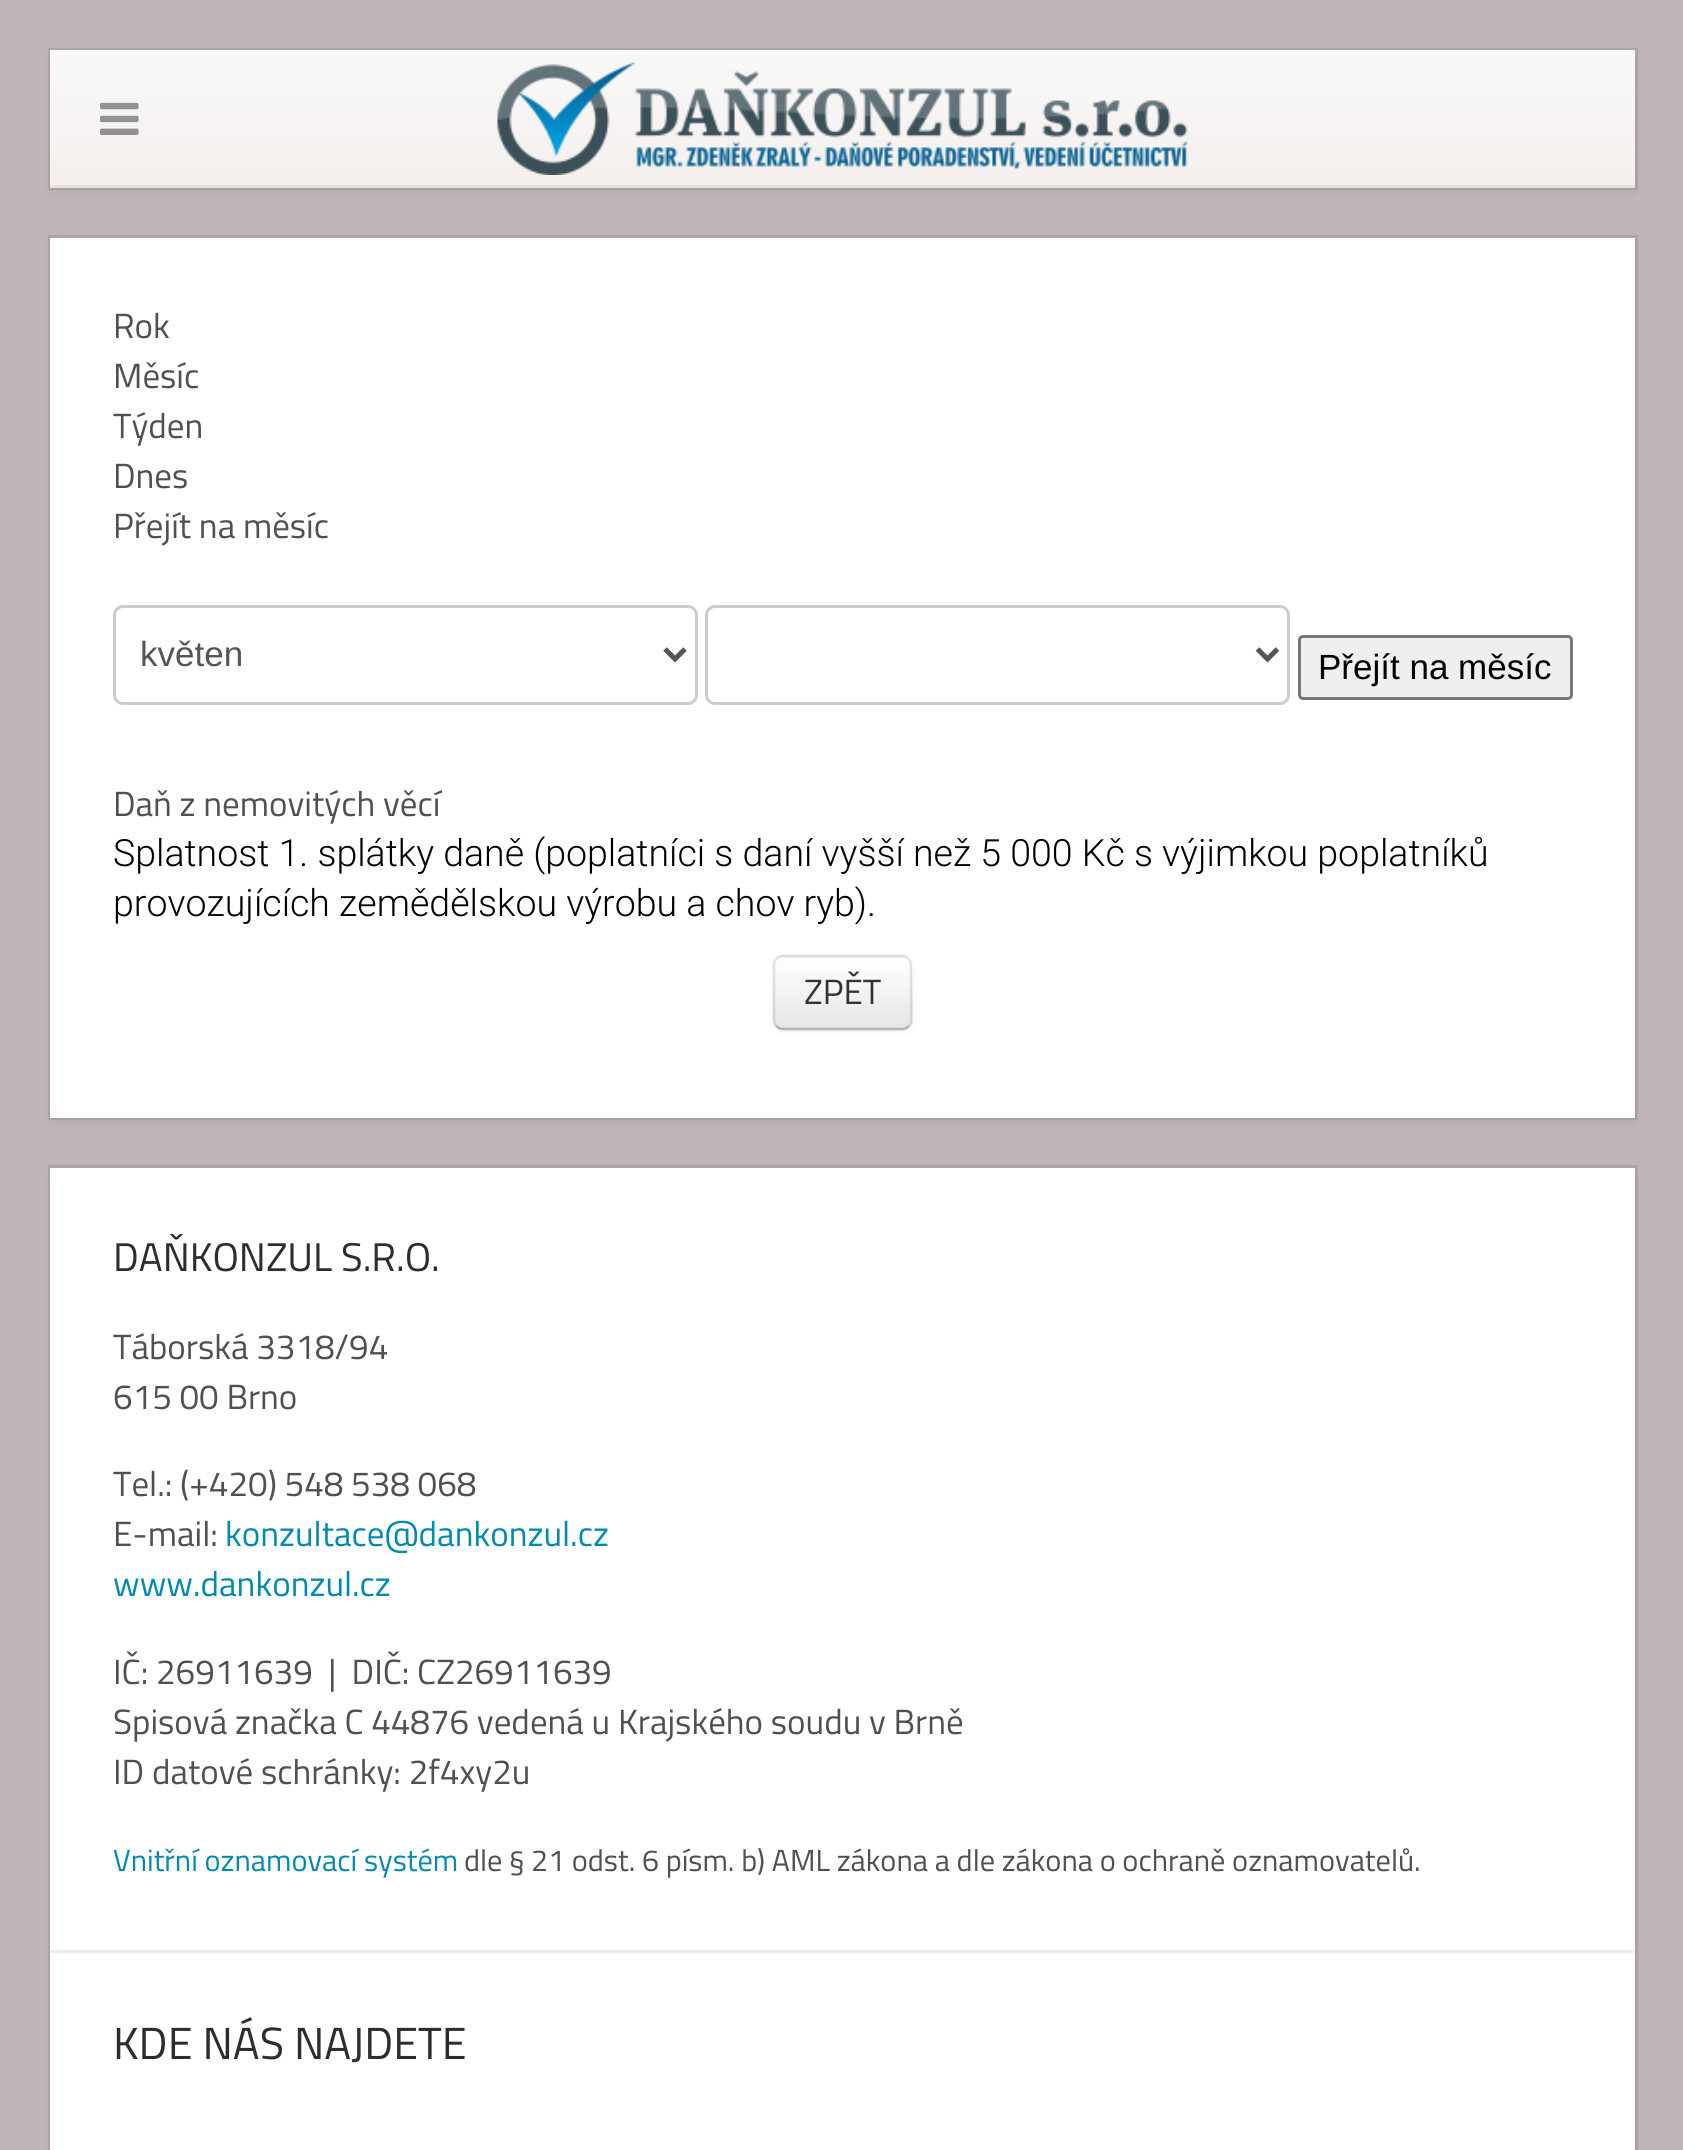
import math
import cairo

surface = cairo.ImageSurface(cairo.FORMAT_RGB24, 1683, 2150)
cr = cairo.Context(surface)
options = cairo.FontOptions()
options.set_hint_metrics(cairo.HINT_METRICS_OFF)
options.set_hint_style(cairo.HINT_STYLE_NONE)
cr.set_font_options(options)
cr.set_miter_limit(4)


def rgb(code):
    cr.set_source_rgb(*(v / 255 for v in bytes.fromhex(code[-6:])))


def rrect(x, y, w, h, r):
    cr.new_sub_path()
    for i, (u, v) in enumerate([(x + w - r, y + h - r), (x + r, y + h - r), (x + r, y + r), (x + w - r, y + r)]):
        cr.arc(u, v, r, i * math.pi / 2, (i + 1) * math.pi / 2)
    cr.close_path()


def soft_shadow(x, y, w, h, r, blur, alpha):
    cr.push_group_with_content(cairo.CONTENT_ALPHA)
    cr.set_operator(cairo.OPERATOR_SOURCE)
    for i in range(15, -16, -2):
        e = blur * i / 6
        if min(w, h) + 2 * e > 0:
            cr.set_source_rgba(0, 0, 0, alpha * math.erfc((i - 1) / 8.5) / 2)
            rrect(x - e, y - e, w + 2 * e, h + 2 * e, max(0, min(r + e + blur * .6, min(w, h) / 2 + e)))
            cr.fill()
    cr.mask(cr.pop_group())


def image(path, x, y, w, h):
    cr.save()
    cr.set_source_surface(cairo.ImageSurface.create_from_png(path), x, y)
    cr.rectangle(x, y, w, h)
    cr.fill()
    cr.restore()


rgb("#bfb6ba")
cr.paint()
rgb("#624449")
soft_shadow(50, 55, 1585, 138, 0, 6, 0.09)
cr.rectangle(49.5, 49.5, 1587, 139)
cr.set_source_rgba(0.384, 0.267, 0.286, 0.16)
cr.set_line_width(3)
cr.stroke()
gradient = cairo.LinearGradient(843, 50, 843, 188)
gradient.add_color_stop_rgba(0, 0.976, 0.976, 0.976, 1)
gradient.add_color_stop_rgba(1, 0.957, 0.937, 0.929, 1)
cr.set_source(gradient)
cr.rectangle(50, 50, 1585, 135)
cr.fill()
rgb("#e5e1df")
cr.rectangle(50, 185, 1585, 3)
cr.fill()
image("img/1.png", 100, 102, 39, 33)
image("img/2.png", 497, 62, 691, 113)
rgb("#624449")
soft_shadow(50, 243, 1585, 880, 0, 6, 0.09)
cr.rectangle(49.5, 236.5, 1587, 882)
cr.set_source_rgba(0.384, 0.267, 0.286, 0.16)
cr.stroke()
rgb("#ffffff")
cr.rectangle(50, 238, 1585, 880)
cr.fill()
rrect(114.5, 606.5, 582, 97, 8.5)
rgb("#cccccc")
cr.stroke()
cr.new_path()
cr.move_to(665, 649)
cr.line_to(675, 659)
cr.line_to(685, 649)
rgb("#555555")
cr.set_line_width(5)
cr.stroke()
rrect(706.5, 606.5, 582, 97, 8.5)
rgb("#cccccc")
cr.set_line_width(3)
cr.stroke()
cr.new_path()
cr.move_to(1257.5, 649)
cr.line_to(1267.5, 659)
cr.line_to(1277.5, 649)
rgb("#555555")
cr.set_line_width(5)
cr.stroke()
rgb("#efefef")
rrect(1299.5, 636.5, 272, 62, 3.5)
cr.fill_preserve()
rgb("#767676")
cr.set_line_width(3)
cr.stroke()
rgb("#000000")
soft_shadow(773, 958, 140, 75, 10, 2.5, 0.05)
rgb("#f5f5f5")
rrect(773, 955, 140, 75, 10)
cr.fill()
cr.save()
rrect(773, 955, 140, 75, 10)
cr.clip()
gradient = cairo.LinearGradient(843, 958, 843, 1028)
gradient.add_color_stop_rgba(0, 1, 1, 1, 1)
gradient.add_color_stop_rgba(1, 0.902, 0.902, 0.902, 1)
cr.set_source(gradient)
cr.rectangle(773, 958, 140, 70)
cr.fill()
cr.restore()
cr.new_path()
cr.move_to(908.5, 1026)
cr.curve_to(907, 1028, 905, 1029, 902.5, 1029)
cr.line_to(782.5, 1029)
cr.curve_to(780, 1029, 778, 1028, 776.5, 1026)
rgb("#b3b3b3")
cr.set_line_width(2.5)
cr.stroke()
cr.new_path()
cr.move_to(776.5, 1026)
cr.curve_to(774.5, 1024.5, 774, 1022.5, 774, 1020)
cr.line_to(774, 965)
cr.curve_to(774, 962.5, 774.5, 960.5, 776.5, 959)
cr.curve_to(778, 957, 780, 956, 782.5, 956)
cr.line_to(902.5, 956)
cr.curve_to(905, 956, 907, 957, 908.5, 959)
cr.curve_to(910.5, 960.5, 911, 962.5, 911, 965)
cr.line_to(911, 1020)
cr.curve_to(911, 1022.5, 910.5, 1024.5, 908.5, 1026)
cr.set_source_rgba(0, 0, 0, 0.1)
cr.stroke()
rgb("#624449")
soft_shadow(50, 1173, 1585, 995, 0, 6, 0.09)
cr.rectangle(49.5, 1166.5, 1587, 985)
cr.set_source_rgba(0.384, 0.267, 0.286, 0.16)
cr.set_line_width(3)
cr.stroke()
rgb("#ffffff")
cr.rectangle(50, 1168, 1585, 982)
cr.fill()
rgb("#ededed")
cr.rectangle(50, 1950, 1585, 3)
cr.fill()
cr.select_font_face("Titillium Web")
cr.set_font_size(35)
rgb("#4f5054")
for x, y, s in [
    (113, 338, "Rok"),
    (113, 388, "Měsíc"),
    (113, 438, "Týden"),
    (113, 488, "Dnes"),
    (113, 538, "Přejít na měsíc"),
]:
    cr.move_to(x, y)
    cr.show_text(s)
cr.select_font_face("Liberation Sans")
rgb("#555555")
cr.move_to(140, 666)
cr.show_text("květen")
rgb("#000000")
cr.move_to(1318, 679)
cr.show_text("Přejít na měsíc")
cr.select_font_face("Titillium Web")
rgb("#4f5054")
cr.move_to(113, 816)
cr.show_text("Daň z nemovitých věcí")
cr.select_font_face("Roboto Light")
cr.set_font_size(37.5)
rgb("#000000")
cr.move_to(113, 866)
cr.show_text("Splatnost 1. splátky daně (poplatníci s daní vyšší než 5 000 Kč s výjimkou poplatníků")
cr.move_to(113, 916)
cr.show_text("provozujících zemědělskou výrobu a chov ryb).")
cr.select_font_face("Titillium Web")
cr.set_font_size(35)
rgb("#333333")
cr.move_to(804, 1004)
cr.show_text("ZPĚT")
cr.set_font_size(40)
rgb("#2c2d30")
cr.move_to(113, 1271)
cr.show_text("DAŇKONZUL S.R.O.")
cr.set_font_size(35)
rgb("#4f5054")
for x, y, s in [
    (113, 1359, "Táborská 3318/94"),
    (113, 1409, "615 00 Brno"),
    (113, 1496, "Tel.: (+420) 548 538 068"),
    (113, 1546, "E-mail:"),
]:
    cr.move_to(x, y)
    cr.show_text(s)
rgb("#0089b1")
cr.move_to(225, 1546)
cr.show_text("konzultace@dankonzul.cz")
cr.move_to(113, 1596)
cr.show_text("www.dankonzul.cz")
rgb("#4f5054")
for x, y, s in [
    (113, 1684, "IČ: 26911639  |  DIČ: CZ26911639"),
    (113, 1734, "Spisová značka C 44876 vedená u Krajského soudu v Brně"),
    (113, 1784, "ID datové schránky: 2f4xy2u"),
]:
    cr.move_to(x, y)
    cr.show_text(s)
cr.set_font_size(30.4)
rgb("#0089b1")
cr.move_to(113, 1871)
cr.show_text("Vnitřní oznamovací systém")
rgb("#4f5054")
cr.move_to(464, 1871)
cr.show_text("dle § 21 odst. 6 písm. b) AML zákona a dle zákona o ochraně oznamovatelů.")
cr.set_font_size(45)
rgb("#2c2d30")
cr.move_to(113, 2059)
cr.show_text("KDE NÁS NAJDETE")
surface.write_to_png("page.png")
